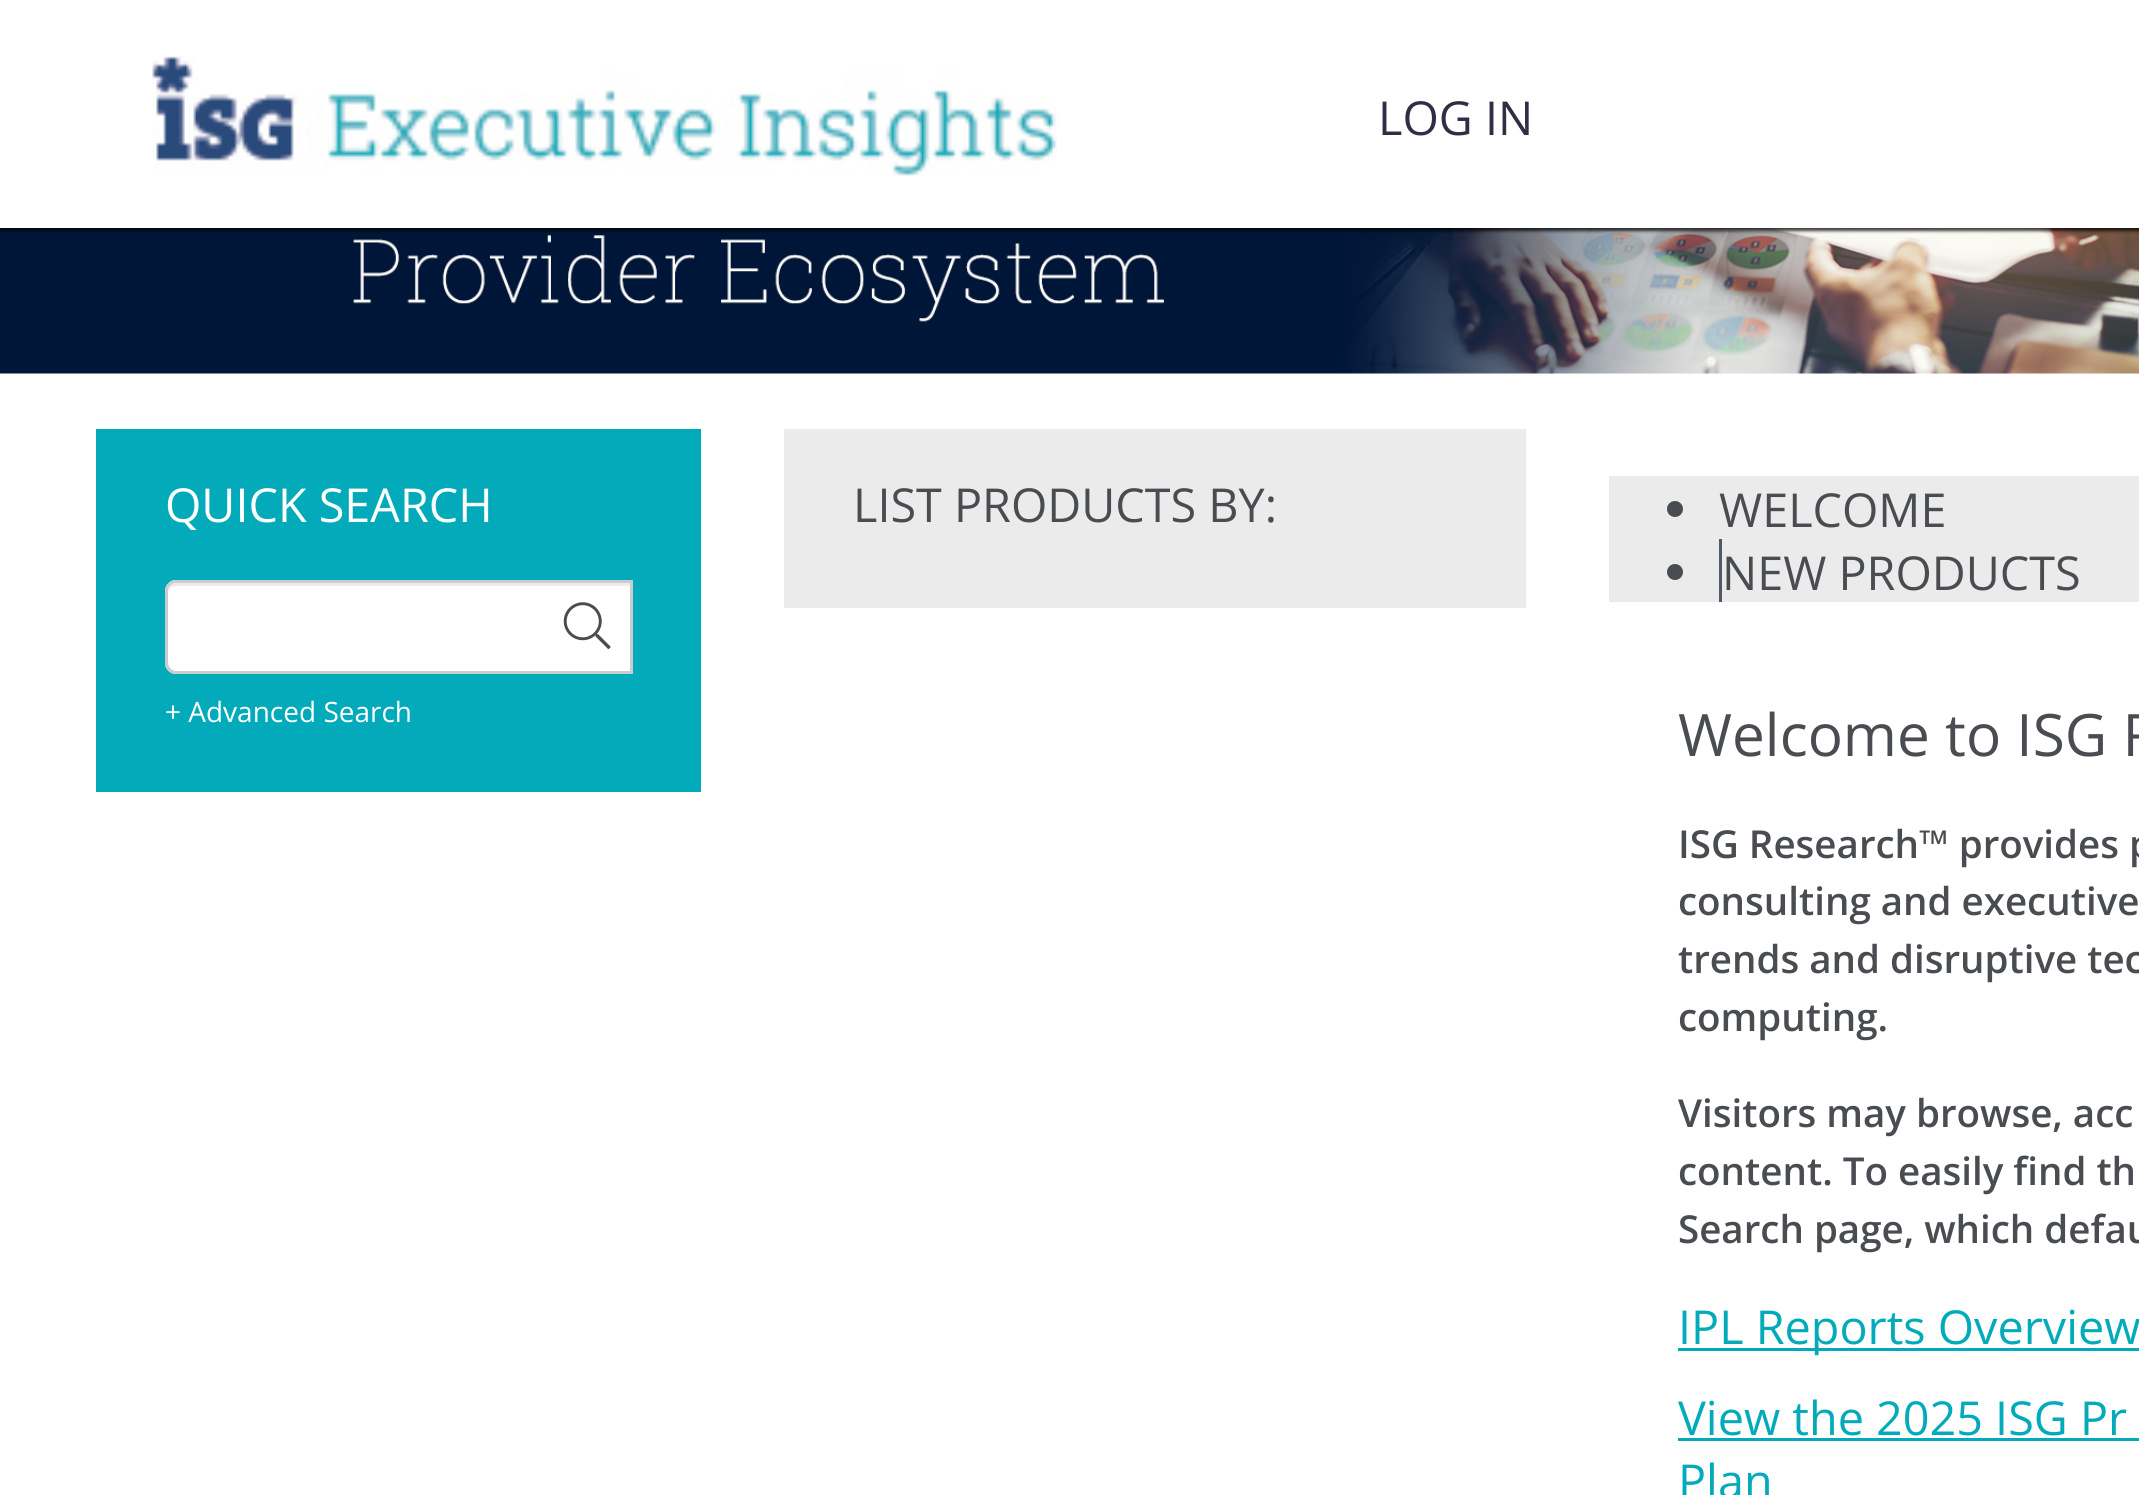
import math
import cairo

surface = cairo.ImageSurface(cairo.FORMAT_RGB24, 2139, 1495)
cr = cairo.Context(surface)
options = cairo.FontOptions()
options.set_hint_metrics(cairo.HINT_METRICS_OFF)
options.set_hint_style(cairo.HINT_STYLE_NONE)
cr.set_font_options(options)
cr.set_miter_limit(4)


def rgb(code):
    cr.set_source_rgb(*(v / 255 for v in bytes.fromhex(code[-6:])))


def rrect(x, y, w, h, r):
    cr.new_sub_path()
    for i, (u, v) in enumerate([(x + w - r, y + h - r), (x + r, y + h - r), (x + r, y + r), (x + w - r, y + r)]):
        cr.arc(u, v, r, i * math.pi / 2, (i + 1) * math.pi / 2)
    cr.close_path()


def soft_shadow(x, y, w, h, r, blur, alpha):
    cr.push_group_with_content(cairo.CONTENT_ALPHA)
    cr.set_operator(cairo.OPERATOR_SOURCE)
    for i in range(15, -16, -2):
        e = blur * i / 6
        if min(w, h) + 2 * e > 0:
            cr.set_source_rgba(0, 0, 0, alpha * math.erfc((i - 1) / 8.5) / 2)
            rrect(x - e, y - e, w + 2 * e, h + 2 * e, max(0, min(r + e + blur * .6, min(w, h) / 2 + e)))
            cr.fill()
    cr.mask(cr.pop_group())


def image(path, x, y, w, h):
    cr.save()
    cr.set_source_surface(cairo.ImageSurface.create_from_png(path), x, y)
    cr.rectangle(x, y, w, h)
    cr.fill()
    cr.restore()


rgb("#ffffff")
cr.paint()
image("img/2.png", 0, 228, 2139, 146)
rgb("#000000")
soft_shadow(0, 3, 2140, 228, 0, 1.5, 0.75)
rgb("#ffffff")
cr.rectangle(0, 0, 2139, 228)
cr.fill()
image("img/1.png", 152, 56, 905, 120)
rgb("#03abba")
cr.rectangle(96, 429, 605, 363)
cr.fill()
rgb("#ffffff")
cr.new_path()
cr.move_to(176, 580)
cr.line_to(633, 580)
cr.line_to(633, 674)
cr.line_to(176, 674)
cr.curve_to(170, 674, 165, 669, 165, 663)
cr.line_to(165, 591)
cr.curve_to(165, 585, 170, 580, 176, 580)
cr.close_path()
cr.fill()
rgb("#ececec")
cr.new_path()
cr.move_to(176, 586)
cr.line_to(630, 586)
cr.line_to(630, 583)
cr.line_to(176, 583)
cr.curve_to(170, 583, 168, 589, 168, 594)
cr.curve_to(168, 589, 171, 586, 176, 586)
cr.close_path()
cr.fill()
cr.new_path()
cr.move_to(176, 581.5)
cr.line_to(631.5, 581.5)
cr.line_to(631.5, 672.5)
cr.line_to(176, 672.5)
cr.curve_to(171, 672.5, 166.5, 668, 166.5, 663)
cr.line_to(166.5, 591)
cr.curve_to(166.5, 586, 171, 581.5, 176, 581.5)
cr.close_path()
rgb("#cccccc")
cr.set_line_width(3)
cr.stroke()
image("img/3.png", 563, 602, 48, 47)
rgb("#ebebeb")
cr.rectangle(784, 429, 742, 179)
cr.fill()
cr.rectangle(1609, 476, 530, 126)
cr.fill()
rgb("#494c50")
cr.arc(1675, 509, 8, 0, 2 * math.pi)
cr.fill()
rgb("#515967")
cr.rectangle(1719, 539, 3, 63)
cr.fill()
rgb("#494c50")
cr.arc(1675, 572, 8, 0, 2 * math.pi)
cr.fill()
rgb("#03abba")
cr.rectangle(1678, 1348, 461, 3)
cr.fill()
cr.rectangle(1678, 1438, 461, 3)
cr.fill()
cr.select_font_face("Open Sans")
cr.set_font_size(46.75)
rgb("#2f2e45")
cr.move_to(1378, 135)
cr.show_text("LOG IN")
rgb("#ffffff")
cr.move_to(165, 522)
cr.show_text("QUICK SEARCH")
cr.set_font_size(28)
cr.move_to(165, 722)
cr.show_text("+ Advanced Search")
cr.set_font_size(46.75)
rgb("#494c50")
for x, y, s in [
    (853, 522, "LIST PRODUCTS BY:"),
    (1719, 527, "WELCOME"),
    (1722, 590, "NEW PRODUCTS"),
]:
    cr.move_to(x, y)
    cr.show_text(s)
cr.set_font_size(58.5)
cr.move_to(1678, 756)
cr.show_text("Welcome to ISG R")
cr.select_font_face("Open Sans SemiBold")
cr.set_font_size(38.5)
for x, y, s in [
    (1678, 858, "ISG Research™ provides p"),
    (1678, 915, "consulting and executive"),
    (1678, 973, "trends and disruptive tec"),
    (1678, 1031, "computing."),
    (1678, 1127, "Visitors may browse, acc"),
    (1678, 1185, "content. To easily find th"),
    (1678, 1243, "Search page, which defau"),
]:
    cr.move_to(x, y)
    cr.show_text(s)
cr.select_font_face("Open Sans")
cr.set_font_size(46.75)
rgb("#03abba")
for x, y, s in [
    (1678, 1344, "IPL Reports Overview"),
    (1678, 1435, "View the 2025 ISG Pr"),
    (1678, 1498, "Plan"),
]:
    cr.move_to(x, y)
    cr.show_text(s)
surface.write_to_png("page.png")
